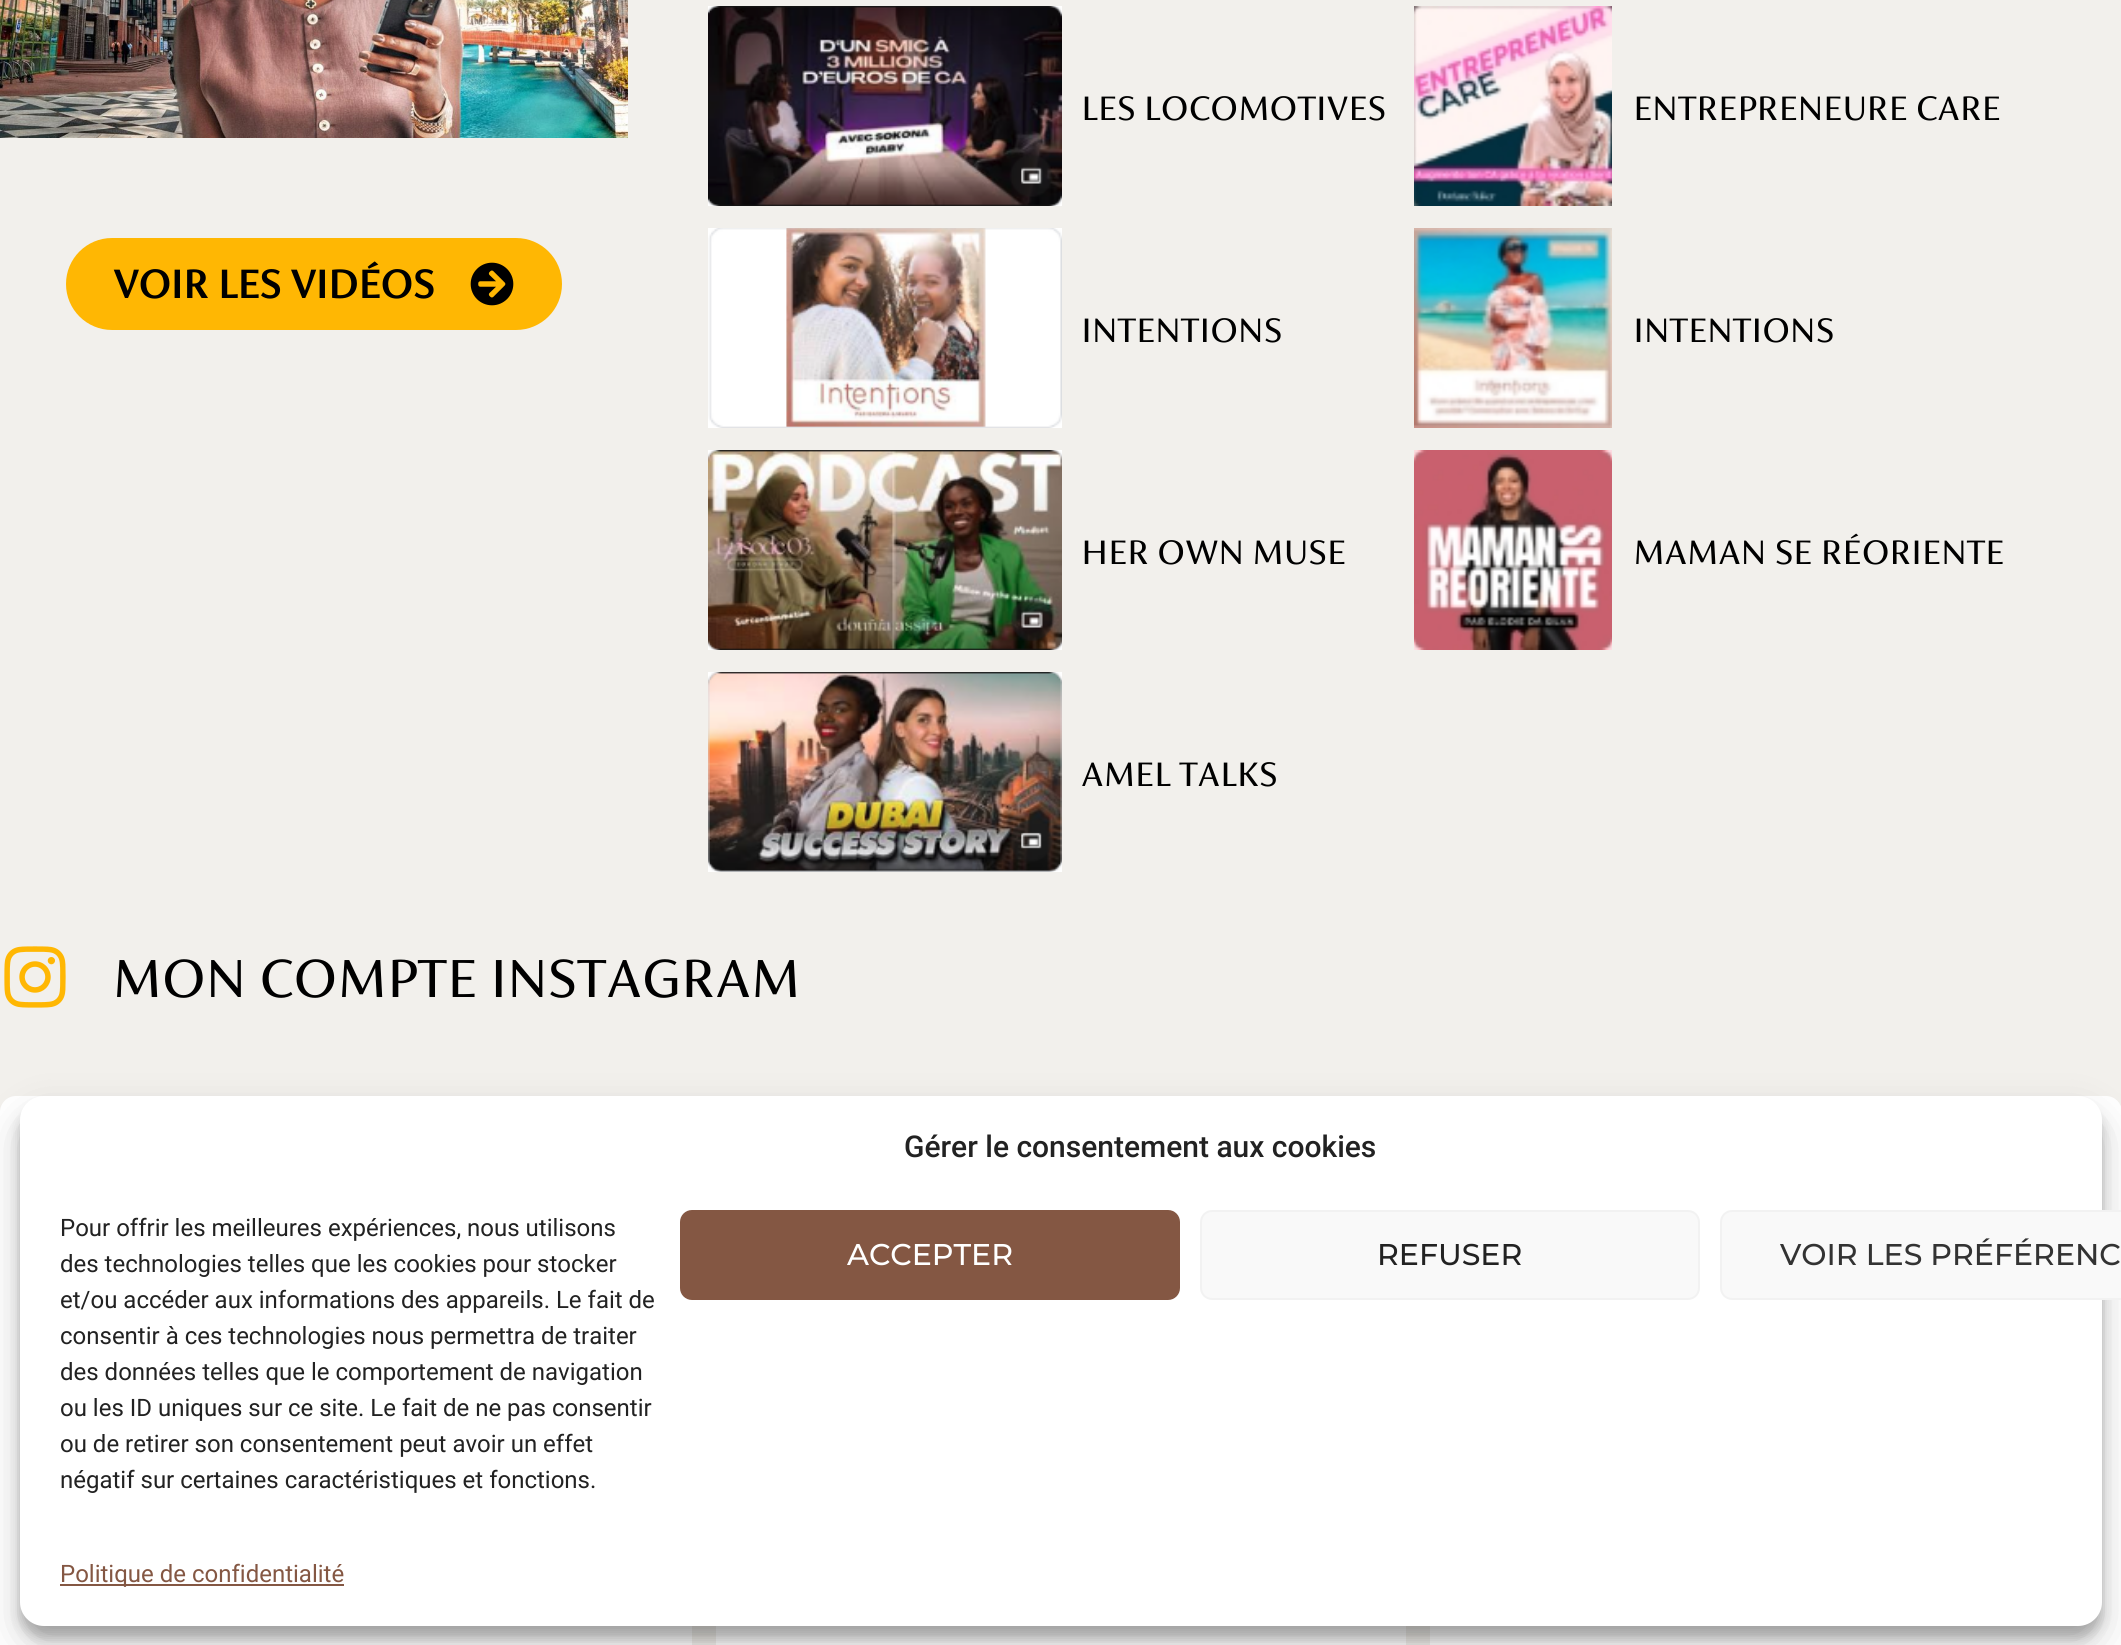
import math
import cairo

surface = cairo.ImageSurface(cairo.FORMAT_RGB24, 2121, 1645)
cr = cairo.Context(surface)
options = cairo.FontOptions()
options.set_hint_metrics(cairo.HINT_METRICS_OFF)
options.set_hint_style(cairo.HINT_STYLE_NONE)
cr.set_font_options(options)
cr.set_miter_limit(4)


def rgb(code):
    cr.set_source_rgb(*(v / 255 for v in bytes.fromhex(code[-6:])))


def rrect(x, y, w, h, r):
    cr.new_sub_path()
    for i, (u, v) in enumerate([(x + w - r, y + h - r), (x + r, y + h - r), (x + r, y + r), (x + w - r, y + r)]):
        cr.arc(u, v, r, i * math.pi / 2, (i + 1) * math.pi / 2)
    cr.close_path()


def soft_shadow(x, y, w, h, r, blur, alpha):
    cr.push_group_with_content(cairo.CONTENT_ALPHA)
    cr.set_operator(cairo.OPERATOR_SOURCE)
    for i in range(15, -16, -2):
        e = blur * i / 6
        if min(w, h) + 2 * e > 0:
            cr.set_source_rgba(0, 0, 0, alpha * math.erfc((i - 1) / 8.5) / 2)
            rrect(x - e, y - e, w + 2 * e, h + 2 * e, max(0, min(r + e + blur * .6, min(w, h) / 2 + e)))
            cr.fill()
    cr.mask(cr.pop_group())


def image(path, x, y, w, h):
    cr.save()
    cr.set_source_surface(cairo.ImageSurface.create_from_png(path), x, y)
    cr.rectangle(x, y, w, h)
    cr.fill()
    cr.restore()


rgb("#f2f0ec")
cr.paint()
image("img/1.png", 0, 0, 628, 138)
rgb("#ffb703")
rrect(66, 238, 496, 92, 46)
cr.fill()
image("img/2.png", 470, 262, 44, 44)
image("img/3.png", 708, 6, 354, 200)
image("img/4.png", 708, 228, 354, 200)
image("img/5.png", 708, 450, 354, 200)
image("img/6.png", 708, 672, 354, 200)
image("img/7.png", 1414, 6, 198, 200)
image("img/8.png", 1414, 228, 198, 200)
image("img/9.png", 1414, 450, 198, 200)
image("img/10.png", 4, 946, 62, 62)
rgb("#ffffff")
rrect(0, 1096, 692, 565, 16)
cr.fill()
cr.rectangle(716, 1626, 690, 19)
cr.fill()
rrect(1430, 1096, 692, 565, 16)
cr.fill()
rgb("#000000")
soft_shadow(20, 1108, 2082, 530, 24, 6, 0.23)
soft_shadow(20, 1116, 2082, 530, 24, 20, 0.19)
rgb("#ffffff")
rrect(20, 1096, 2082, 530, 24)
cr.fill()
rgb("#845743")
rrect(681, 1211, 498, 88, 11)
cr.fill_preserve()
cr.stroke()
rgb("#f9f9f9")
rrect(1201, 1211, 498, 88, 11)
cr.fill_preserve()
rgb("#f2f2f2")
cr.stroke()
rgb("#f9f9f9")
rrect(1721, 1211, 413, 88, 11)
cr.fill_preserve()
rgb("#f2f2f2")
cr.stroke()
rgb("#845743")
cr.rectangle(60, 1584, 284, 2)
cr.fill()
cr.select_font_face("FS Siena", cairo.FONT_SLANT_NORMAL, cairo.FONT_WEIGHT_BOLD)
cr.set_font_size(44)
rgb("#000000")
cr.move_to(113, 298)
cr.show_text("VOIR LES VIDÉOS")
cr.select_font_face("FS Siena")
cr.set_font_size(38)
for x, y, s in [
    (1081, 120, "LES LOCOMOTIVES"),
    (1081, 342, "INTENTIONS"),
    (1081, 564, "HER OWN MUSE"),
    (1081, 786, "AMEL TALKS"),
    (1633, 120, "ENTREPRENEURE CARE"),
    (1633, 342, "INTENTIONS"),
    (1633, 564, "MAMAN SE RÉORIENTE"),
]:
    cr.move_to(x, y)
    cr.show_text(s)
cr.set_font_size(60)
cr.move_to(112, 997)
cr.show_text("MON COMPTE INSTAGRAM")
cr.select_font_face("Roboto Medium")
cr.set_font_size(30)
rgb("#222222")
cr.move_to(904, 1157)
cr.show_text("Gérer le consentement aux cookies")
cr.select_font_face("Roboto")
cr.set_font_size(24)
for x, y, s in [
    (60, 1236, "Pour offrir les meilleures expériences, nous utilisons"),
    (60, 1272, "des technologies telles que les cookies pour stocker"),
    (60, 1308, "et/ou accéder aux informations des appareils. Le fait de"),
    (60, 1344, "consentir à ces technologies nous permettra de traiter"),
    (60, 1380, "des données telles que le comportement de navigation"),
    (60, 1416, "ou les ID uniques sur ce site. Le fait de ne pas consentir"),
    (60, 1452, "ou de retirer son consentement peut avoir un effet"),
    (60, 1488, "négatif sur certaines caractéristiques et fonctions."),
]:
    cr.move_to(x, y)
    cr.show_text(s)
cr.select_font_face("Montserrat Medium")
cr.set_font_size(30)
rgb("#ffffff")
cr.move_to(847, 1265)
cr.show_text("ACCEPTER")
rgb("#222222")
cr.move_to(1377, 1265)
cr.show_text("REFUSER")
rgb("#333333")
cr.move_to(1780, 1265)
cr.show_text("VOIR LES PRÉFÉRENC")
cr.select_font_face("Roboto")
cr.set_font_size(24)
rgb("#845743")
cr.move_to(60, 1582)
cr.show_text("Politique de confidentialité")
surface.write_to_png("page.png")
